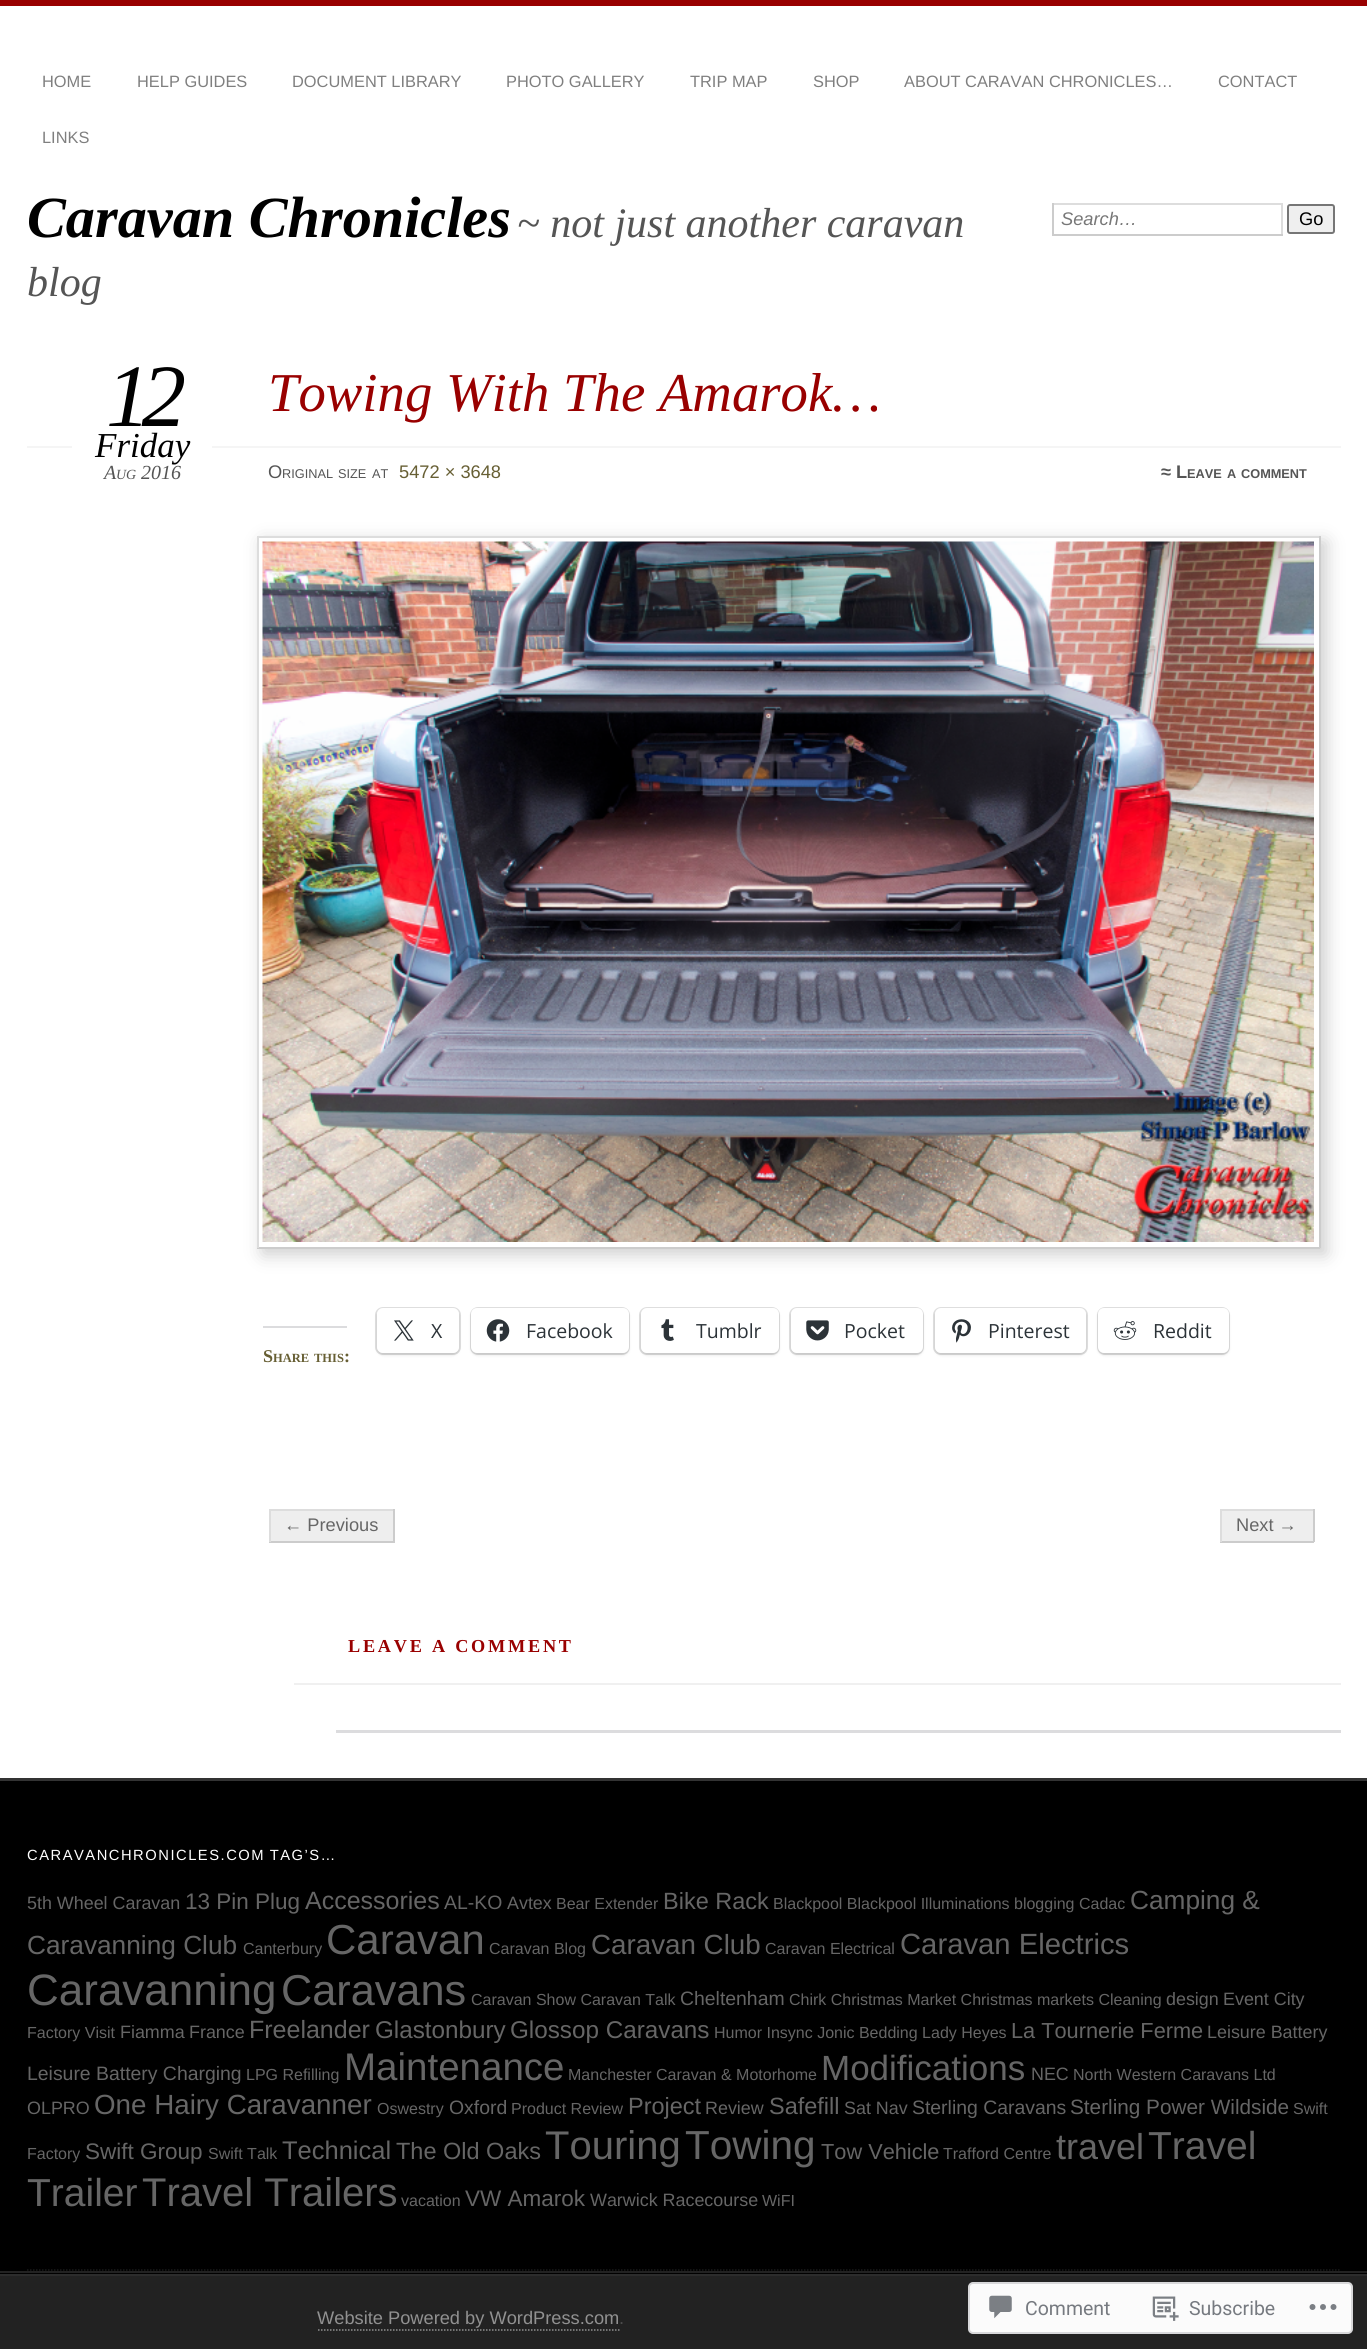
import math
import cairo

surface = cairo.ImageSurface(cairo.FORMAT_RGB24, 1367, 2349)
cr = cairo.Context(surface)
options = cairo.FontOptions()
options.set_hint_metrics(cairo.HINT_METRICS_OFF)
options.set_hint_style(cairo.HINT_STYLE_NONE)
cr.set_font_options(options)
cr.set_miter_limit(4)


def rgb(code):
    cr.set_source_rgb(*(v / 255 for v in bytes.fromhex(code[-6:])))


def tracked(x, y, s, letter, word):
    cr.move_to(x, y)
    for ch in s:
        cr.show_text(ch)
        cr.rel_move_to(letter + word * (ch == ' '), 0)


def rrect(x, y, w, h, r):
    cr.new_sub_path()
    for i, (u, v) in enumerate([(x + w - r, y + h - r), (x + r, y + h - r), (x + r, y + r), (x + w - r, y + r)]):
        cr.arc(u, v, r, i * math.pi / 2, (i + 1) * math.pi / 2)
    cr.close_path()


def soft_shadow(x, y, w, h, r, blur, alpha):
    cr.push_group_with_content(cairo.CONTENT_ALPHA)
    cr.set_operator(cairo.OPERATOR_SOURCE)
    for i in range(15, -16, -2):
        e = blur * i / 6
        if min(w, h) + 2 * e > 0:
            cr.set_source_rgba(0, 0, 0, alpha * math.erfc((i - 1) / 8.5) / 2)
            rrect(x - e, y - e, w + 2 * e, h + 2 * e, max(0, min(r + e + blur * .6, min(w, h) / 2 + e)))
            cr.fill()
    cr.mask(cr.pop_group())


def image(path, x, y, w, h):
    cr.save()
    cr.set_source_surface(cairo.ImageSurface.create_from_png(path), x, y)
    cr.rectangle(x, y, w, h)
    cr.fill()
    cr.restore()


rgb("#ffffff")
cr.paint()
for x, y, w, h, color in [
    (0, 0, 1367, 6, "#990000"),
    (1052, 203, 231, 2, "#dddddd"),
    (1281, 203, 2, 33, "#dddddd"),
    (1052, 234, 231, 2, "#cccccc"),
    (1052, 203, 2, 33, "#cccccc"),
]:
    rgb(color)
    cr.rectangle(x, y, w, h)
    cr.fill()
rgb("#efefef")
rrect(1288, 205, 46, 28, 2)
cr.fill_preserve()
rgb("#767676")
cr.stroke()
rgb("#f5f5f5")
cr.rectangle(27, 446, 1314, 2)
cr.fill()
rgb("#ffffff")
cr.rectangle(72, 446, 140, 2)
cr.fill()
cr.save()
cr.set_fill_rule(cairo.FILL_RULE_EVEN_ODD)
cr.new_path()
cr.move_to(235, 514)
cr.line_to(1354, 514)
cr.line_to(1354, 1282)
cr.line_to(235, 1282)
cr.close_path()
cr.move_to(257, 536)
cr.line_to(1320, 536)
cr.line_to(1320, 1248)
cr.line_to(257, 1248)
cr.close_path()
cr.clip()
rgb("#cccccc")
soft_shadow(263, 542, 1063, 712, 0, 9, 1)
cr.restore()
for x, y, w, h, color in [
    (257, 536, 1063, 2, "#dddddd"),
    (1319, 536, 2, 712, "#cccccc"),
    (257, 1247, 1063, 2, "#cccccc"),
    (257, 536, 2, 712, "#dddddd"),
]:
    rgb(color)
    cr.rectangle(x, y, w, h)
    cr.fill()
image("img/1.png", 262, 541, 1052, 701)
rrect(376, 1308, 84, 46, 7)
rgb("#e0e0e0")
cr.stroke()
rgb("#000000")
soft_shadow(377, 1310, 82, 45, 6, 1.5, 0.12)
rgb("#ffffff")
rrect(377, 1308, 82, 45, 6)
cr.fill()
image("img/2.png", 394, 1320, 20, 21)
rrect(471, 1308, 158, 46, 7)
rgb("#e0e0e0")
cr.stroke()
rgb("#000000")
soft_shadow(471, 1310, 158, 45, 6, 1.5, 0.12)
rgb("#ffffff")
rrect(471, 1308, 158, 45, 6)
cr.fill()
image("img/3.png", 486, 1319, 24, 23)
rrect(640, 1308, 139, 46, 7)
rgb("#e0e0e0")
cr.stroke()
rgb("#000000")
soft_shadow(641, 1310, 138, 45, 6, 1.5, 0.12)
rgb("#ffffff")
rrect(641, 1308, 138, 45, 6)
cr.fill()
image("img/4.png", 661, 1319, 13, 22)
rrect(790, 1308, 133, 46, 7)
rgb("#e0e0e0")
cr.stroke()
rgb("#000000")
soft_shadow(791, 1310, 132, 45, 6, 1.5, 0.12)
rgb("#ffffff")
rrect(791, 1308, 132, 45, 6)
cr.fill()
image("img/5.png", 806, 1320, 23, 21)
rrect(934, 1308, 153, 46, 7)
rgb("#e0e0e0")
cr.stroke()
rgb("#000000")
soft_shadow(935, 1310, 151, 45, 6, 1.5, 0.12)
rgb("#ffffff")
rrect(935, 1308, 151, 45, 6)
cr.fill()
image("img/6.png", 952, 1319, 19, 24)
rrect(1098, 1308, 131, 46, 7)
rgb("#e0e0e0")
cr.stroke()
rgb("#000000")
soft_shadow(1098, 1310, 131, 45, 6, 1.5, 0.12)
rgb("#ffffff")
rrect(1098, 1308, 131, 45, 6)
cr.fill()
image("img/7.png", 1113, 1321, 24, 19)
for x, y, w, h, color in [
    (263, 1326, 84, 2, "#dcdcde"),
    (271, 1511, 122, 30, "#eeeeee"),
    (269, 1509, 126, 2, "#dddddd"),
    (393, 1509, 2, 33, "#cccccc"),
    (269, 1541, 126, 2, "#cccccc"),
    (269, 1509, 2, 33, "#dddddd"),
    (1222, 1511, 91, 30, "#eeeeee"),
    (1220, 1509, 94, 2, "#dddddd"),
    (1313, 1509, 2, 33, "#cccccc"),
    (1220, 1541, 94, 2, "#cccccc"),
    (1220, 1509, 2, 33, "#dddddd"),
    (294, 1683, 1047, 2, "#f0f0f0"),
    (336, 1730, 1005, 3, "#dcdcde"),
    (0, 1781, 1367, 493, "#000000"),
    (0, 1778, 1367, 3, "#333333"),
    (0, 2271, 1367, 2, "#222222"),
]:
    rgb(color)
    cr.rectangle(x, y, w, h)
    cr.fill()
cr.new_path()
cr.move_to(27, 2270)
cr.line_to(1341, 2270)
rgb("#1a1a1a")
cr.set_line_width(1.5)
cr.set_dash([1.5, 1.5])
cr.stroke()
rgb("#222222")
cr.rectangle(0, 2276, 1367, 73)
cr.fill()
rgb("#2c2c2c")
cr.rectangle(0, 2274, 1367, 2)
cr.fill()
cr.new_path()
cr.move_to(318, 2330)
cr.line_to(619.5, 2330)
rgb("#919191")
cr.stroke()
rgb("#fbfbfb")
rrect(969, 2283, 383, 50, 4)
cr.fill_preserve()
rgb("#d8d8da")
cr.set_line_width(2)
cr.set_dash([])
cr.stroke()
image("img/8.png", 989, 2295, 23, 24)
image("img/9.png", 1152, 2296, 27, 25)
image("img/10.png", 1309, 2304, 28, 6)
cr.select_font_face("Liberation Sans")
cr.set_font_size(16.4)
rgb("#7f7f7f")
for x, y, s in [
    (42, 87, "HOME"),
    (137, 87, "HELP GUIDES"),
    (292, 87, "DOCUMENT LIBRARY"),
    (506, 87, "PHOTO GALLERY"),
    (690, 87, "TRIP MAP"),
    (813, 87, "SHOP"),
    (904, 87, "ABOUT CARAVAN CHRONICLES…"),
    (1218, 87, "CONTACT"),
    (42, 143, "LINKS"),
]:
    cr.move_to(x, y)
    cr.show_text(s)
cr.select_font_face("Liberation Serif", cairo.FONT_SLANT_ITALIC, cairo.FONT_WEIGHT_BOLD)
cr.set_font_size(58.25)
rgb("#000000")
cr.move_to(27, 237)
cr.show_text("Caravan Chronicles")
cr.select_font_face("Liberation Serif", cairo.FONT_SLANT_ITALIC)
cr.set_font_size(42)
rgb("#555555")
cr.move_to(517, 237)
cr.show_text("~ not just another caravan")
cr.move_to(27, 296)
cr.show_text("blog")
cr.select_font_face("Liberation Sans", cairo.FONT_SLANT_ITALIC)
cr.set_font_size(18.25)
rgb("#777777")
cr.move_to(1061, 225)
cr.show_text("Search…")
cr.select_font_face("Liberation Sans")
rgb("#000000")
cr.move_to(1299, 225)
cr.show_text("Go")
cr.select_font_face("Liberation Serif", cairo.FONT_SLANT_ITALIC)
cr.set_font_size(89)
tracked(106, 426, "12", -9, 0)
cr.set_font_size(35)
cr.move_to(95, 457)
cr.show_text("Friday")
cr.set_font_size(20)
rgb("#555555")
cr.move_to(104, 479)
cr.show_text("A")
cr.set_font_size(14)
cr.move_to(116, 479)
cr.show_text("UG")
cr.set_font_size(20)
cr.move_to(141, 479)
cr.show_text("2016")
cr.set_font_size(54.75)
rgb("#990000")
cr.move_to(268, 411)
cr.show_text("Towing With The Amarok…")
cr.select_font_face("Liberation Sans")
cr.set_font_size(18.25)
rgb("#555555")
cr.move_to(268, 478)
cr.show_text("O")
cr.set_font_size(12.75)
for x, y, s in [
    (282, 478, "RIGINAL"),
    (338, 478, "SIZE"),
    (372, 478, "AT"),
]:
    cr.move_to(x, y)
    cr.show_text(s)
cr.set_font_size(18.25)
rgb("#675f34")
cr.move_to(399, 478)
cr.show_text("5472 × 3648")
cr.select_font_face("Liberation Sans", cairo.FONT_SLANT_NORMAL, cairo.FONT_WEIGHT_BOLD)
rgb("#555555")
cr.move_to(1161, 478)
cr.show_text("≈ L")
cr.set_font_size(12.75)
for x, y, s in [
    (1187, 478, "EAVE"),
    (1227, 478, "A"),
    (1241, 478, "COMMENT"),
]:
    cr.move_to(x, y)
    cr.show_text(s)
cr.select_font_face("Open Sans")
cr.set_font_size(19.5)
rgb("#2c3338")
for x, y, s in [
    (431, 1338, "X"),
    (526, 1338, "Facebook"),
    (696, 1338, "Tumblr"),
    (844, 1338, "Pocket"),
    (988, 1338, "Pinterest"),
    (1153, 1338, "Reddit"),
]:
    cr.move_to(x, y)
    cr.show_text(s)
cr.select_font_face("Liberation Serif", cairo.FONT_SLANT_NORMAL, cairo.FONT_WEIGHT_BOLD)
cr.set_font_size(18)
rgb("#675f34")
cr.move_to(263, 1362)
cr.show_text("S")
cr.set_font_size(12.5)
cr.move_to(273, 1362)
cr.show_text("HARE")
cr.move_to(314, 1362)
cr.show_text("THIS")
cr.set_font_size(18)
cr.move_to(344, 1362)
cr.show_text(":")
cr.select_font_face("Liberation Sans")
cr.set_font_size(18.25)
rgb("#666666")
cr.move_to(284, 1531)
cr.show_text("← Previous")
cr.move_to(1236, 1531)
cr.show_text("Next →")
cr.select_font_face("Liberation Serif", cairo.FONT_SLANT_NORMAL, cairo.FONT_WEIGHT_BOLD)
rgb("#990000")
tracked(348, 1652, "LEAVE A COMMENT", 2.75, 0)
cr.select_font_face("Liberation Sans")
cr.set_font_size(14.75)
rgb("#ffffff")
tracked(27, 1860, "CARAVANCHRONICLES.COM TAG’S…", 1.5, -1)
cr.set_font_size(17.9)
rgb("#666666")
cr.move_to(27, 1909)
cr.show_text("5th Wheel Caravan")
cr.set_font_size(22.5)
cr.move_to(185, 1909)
cr.show_text("13 Pin Plug")
cr.set_font_size(25)
cr.move_to(305, 1909)
cr.show_text("Accessories")
cr.set_font_size(19.4)
cr.move_to(444, 1909)
cr.show_text("AL-KO")
cr.set_font_size(17.9)
cr.move_to(507, 1909)
cr.show_text("Avtex")
cr.set_font_size(16)
cr.move_to(556, 1909)
cr.show_text("Bear Extender")
cr.set_font_size(23.5)
cr.move_to(663, 1909)
cr.show_text("Bike Rack")
cr.set_font_size(16)
cr.move_to(773, 1909)
cr.show_text("Blackpool Blackpool Illuminations blogging Cadac")
cr.set_font_size(26.25)
cr.move_to(1130, 1909)
cr.show_text("Camping &")
cr.move_to(27, 1954)
cr.show_text("Caravanning Club")
cr.set_font_size(16)
cr.move_to(243, 1954)
cr.show_text("Canterbury")
cr.set_font_size(42)
cr.move_to(326, 1954)
cr.show_text("Caravan")
cr.set_font_size(16)
cr.move_to(489, 1954)
cr.show_text("Caravan Blog")
cr.set_font_size(27.75)
cr.move_to(591, 1954)
cr.show_text("Caravan Club")
cr.set_font_size(16)
cr.move_to(765, 1954)
cr.show_text("Caravan Electrical")
cr.set_font_size(29.25)
cr.move_to(900, 1954)
cr.show_text("Caravan Electrics")
cr.set_font_size(44)
cr.move_to(27, 2005)
cr.show_text("Caravanning")
cr.set_font_size(43.25)
cr.move_to(281, 2005)
cr.show_text("Caravans")
cr.set_font_size(16)
cr.move_to(471, 2005)
cr.show_text("Caravan Show Caravan Talk")
cr.set_font_size(19.4)
cr.move_to(680, 2005)
cr.show_text("Cheltenham")
cr.set_font_size(16)
cr.move_to(789, 2005)
cr.show_text("Chirk Christmas Market Christmas markets Cleaning")
cr.set_font_size(17.9)
cr.move_to(1166, 2005)
cr.show_text("design")
cr.move_to(1223, 2005)
cr.show_text("Event City")
cr.set_font_size(16)
cr.move_to(27, 2038)
cr.show_text("Factory Visit")
cr.set_font_size(17.9)
cr.move_to(120, 2038)
cr.show_text("Fiamma")
cr.move_to(189, 2038)
cr.show_text("France")
cr.set_font_size(25)
cr.move_to(249, 2038)
cr.show_text("Freelander")
cr.set_font_size(24.25)
cr.move_to(375, 2038)
cr.show_text("Glastonbury")
cr.move_to(510, 2038)
cr.show_text("Glossop Caravans")
cr.set_font_size(16)
cr.move_to(714, 2038)
cr.show_text("Humor Insync Jonic Bedding Lady Heyes")
cr.set_font_size(21.75)
cr.move_to(1011, 2038)
cr.show_text("La Tournerie Ferme")
cr.set_font_size(17.9)
cr.move_to(1207, 2038)
cr.show_text("Leisure Battery")
cr.set_font_size(19.4)
cr.move_to(27, 2080)
cr.show_text("Leisure Battery Charging")
cr.set_font_size(16)
cr.move_to(246, 2080)
cr.show_text("LPG Refilling")
cr.set_font_size(38.5)
cr.move_to(344, 2080)
cr.show_text("Maintenance")
cr.set_font_size(16)
cr.move_to(568, 2080)
cr.show_text("Manchester Caravan & Motorhome")
cr.set_font_size(35)
cr.move_to(821, 2080)
cr.show_text("Modifications")
cr.set_font_size(17.9)
cr.move_to(1031, 2080)
cr.show_text("NEC")
cr.set_font_size(16)
cr.move_to(1073, 2080)
cr.show_text("North Western Caravans Ltd")
cr.set_font_size(17.9)
cr.move_to(27, 2114)
cr.show_text("OLPRO")
cr.set_font_size(27.75)
cr.move_to(94, 2114)
cr.show_text("One Hairy Caravanner")
cr.set_font_size(16)
cr.move_to(377, 2114)
cr.show_text("Oswestry")
cr.set_font_size(19.4)
cr.move_to(449, 2114)
cr.show_text("Oxford")
cr.set_font_size(16)
cr.move_to(511, 2114)
cr.show_text("Product Review")
cr.set_font_size(23.5)
cr.move_to(628, 2114)
cr.show_text("Project")
cr.set_font_size(17.9)
cr.move_to(705, 2114)
cr.show_text("Review")
cr.set_font_size(23.5)
cr.move_to(769, 2114)
cr.show_text("Safefill")
cr.set_font_size(17.9)
cr.move_to(844, 2114)
cr.show_text("Sat Nav")
cr.set_font_size(19.4)
cr.move_to(912, 2114)
cr.show_text("Sterling Caravans")
cr.set_font_size(20.75)
cr.move_to(1070, 2114)
cr.show_text("Sterling Power Wildside")
cr.set_font_size(16)
cr.move_to(1293, 2114)
cr.show_text("Swift")
cr.move_to(27, 2159)
cr.show_text("Factory")
cr.set_font_size(22.5)
cr.move_to(85, 2159)
cr.show_text("Swift Group")
cr.set_font_size(16)
cr.move_to(208, 2159)
cr.show_text("Swift Talk")
cr.set_font_size(25.5)
cr.move_to(282, 2159)
cr.show_text("Technical")
cr.set_font_size(23.5)
cr.move_to(396, 2159)
cr.show_text("The Old Oaks")
cr.set_font_size(40)
cr.move_to(545, 2159)
cr.show_text("Touring")
cr.set_font_size(40.5)
cr.move_to(685, 2159)
cr.show_text("Towing")
cr.set_font_size(21.75)
cr.move_to(821, 2159)
cr.show_text("Tow Vehicle")
cr.set_font_size(16)
cr.move_to(943, 2159)
cr.show_text("Trafford Centre")
cr.set_font_size(36)
cr.move_to(1056, 2159)
cr.show_text("travel")
cr.set_font_size(39)
cr.move_to(1148, 2159)
cr.show_text("Travel")
cr.move_to(27, 2206)
cr.show_text("Trailer")
cr.set_font_size(40)
cr.move_to(142, 2206)
cr.show_text("Travel Trailers")
cr.set_font_size(16)
cr.move_to(401, 2206)
cr.show_text("vacation")
cr.set_font_size(22.5)
cr.move_to(465, 2206)
cr.show_text("VW Amarok")
cr.set_font_size(17.9)
cr.move_to(590, 2206)
cr.show_text("Warwick Racecourse")
cr.set_font_size(16)
cr.move_to(762, 2206)
cr.show_text("WiFI")
cr.set_font_size(18.25)
rgb("#919191")
cr.move_to(317, 2324)
cr.show_text("Website Powered by WordPress.com")
rgb("#4d4d4d")
cr.move_to(619, 2324)
cr.show_text(".")
cr.select_font_face("Roboto")
cr.set_font_size(19.5)
rgb("#767a80")
cr.move_to(1025, 2315)
cr.show_text("Comment")
cr.move_to(1189, 2315)
cr.show_text("Subscribe")
surface.write_to_png("page.png")
